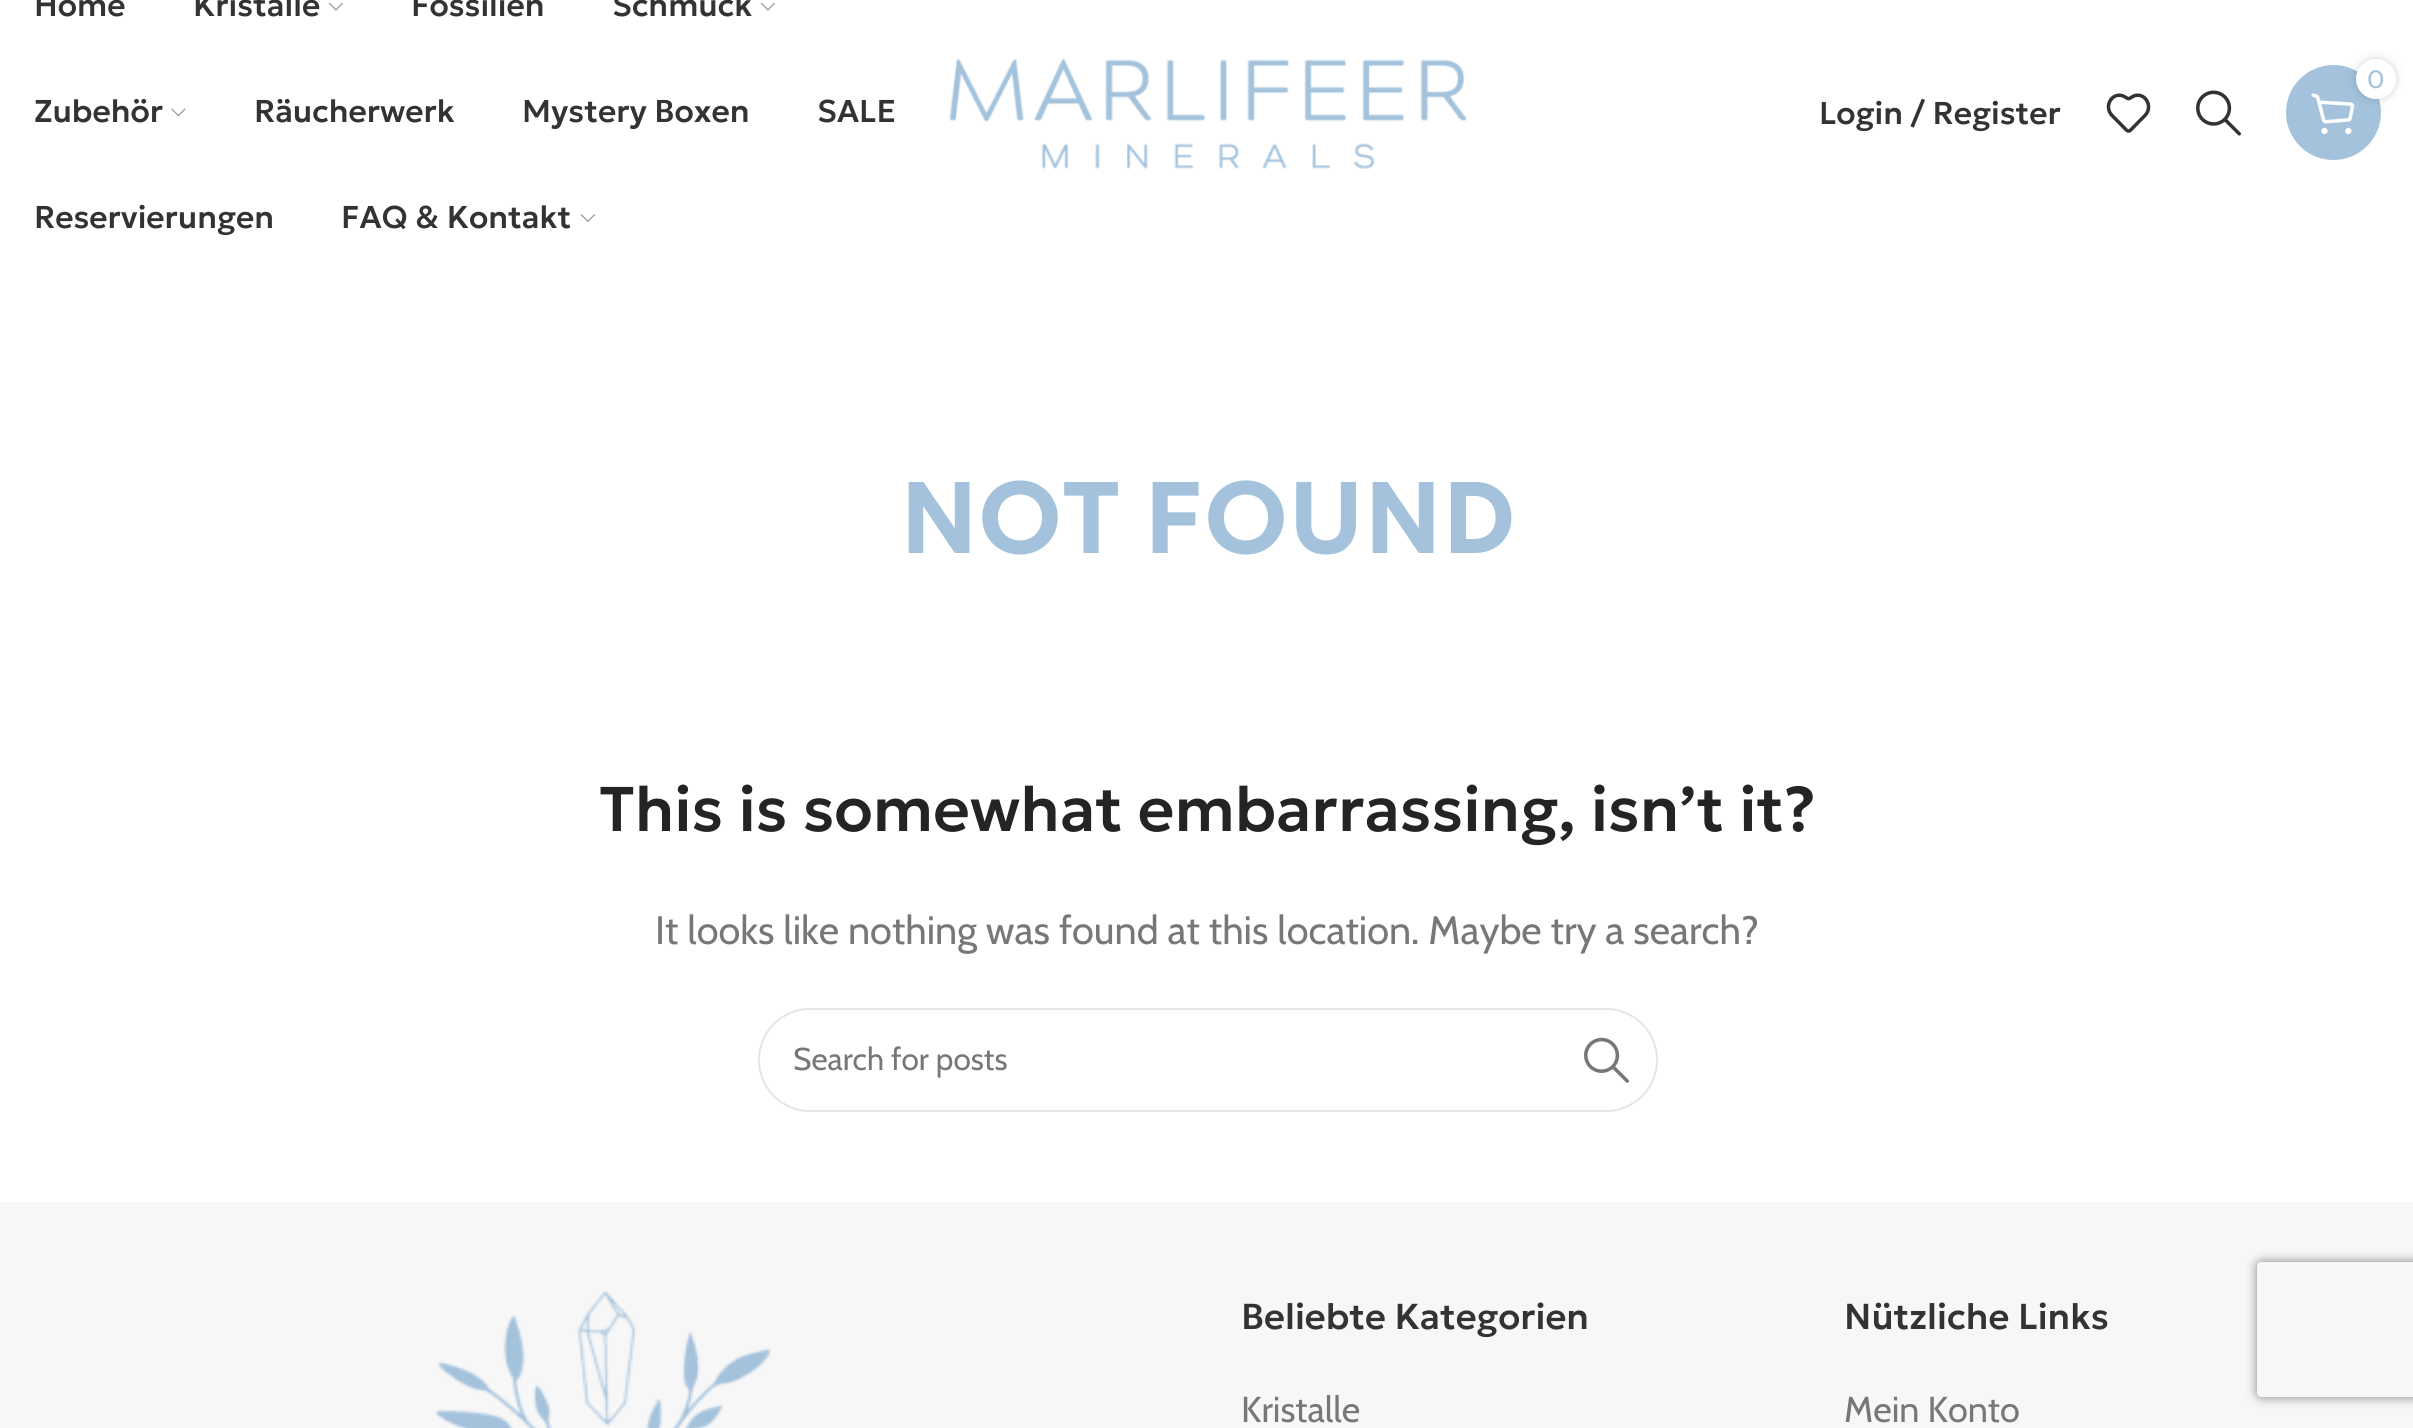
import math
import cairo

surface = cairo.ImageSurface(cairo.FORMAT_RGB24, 2413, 1428)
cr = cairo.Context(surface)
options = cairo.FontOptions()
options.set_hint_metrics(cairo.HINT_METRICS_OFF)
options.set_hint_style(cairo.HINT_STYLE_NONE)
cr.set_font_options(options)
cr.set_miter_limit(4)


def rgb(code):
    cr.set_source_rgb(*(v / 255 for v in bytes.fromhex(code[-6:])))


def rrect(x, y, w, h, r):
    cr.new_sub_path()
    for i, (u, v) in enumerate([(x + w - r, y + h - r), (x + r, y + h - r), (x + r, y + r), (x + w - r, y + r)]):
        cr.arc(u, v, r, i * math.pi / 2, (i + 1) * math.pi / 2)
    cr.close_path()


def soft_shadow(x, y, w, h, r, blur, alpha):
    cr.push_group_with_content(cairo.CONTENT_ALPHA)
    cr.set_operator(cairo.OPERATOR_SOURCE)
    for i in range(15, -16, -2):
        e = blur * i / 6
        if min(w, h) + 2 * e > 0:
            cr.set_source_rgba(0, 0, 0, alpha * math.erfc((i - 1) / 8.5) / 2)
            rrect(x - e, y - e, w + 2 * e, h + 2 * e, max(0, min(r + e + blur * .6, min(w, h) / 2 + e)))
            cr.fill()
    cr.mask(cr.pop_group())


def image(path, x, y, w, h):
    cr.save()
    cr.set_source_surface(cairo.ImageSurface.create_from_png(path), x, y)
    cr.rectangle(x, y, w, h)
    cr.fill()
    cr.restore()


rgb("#ffffff")
cr.paint()
image("img/1.png", 328, 2, 15, 9)
image("img/1.png", 760, 2, 15, 9)
image("img/2.png", 171, 108, 15, 9)
image("img/3.png", 580, 214, 15, 8)
image("img/4.png", 949, 58, 518, 112)
rgb("#a4c2dc")
cr.arc(2333.5, 112.5, 47.5, 0, 2 * math.pi)
cr.fill()
image("img/5.png", 2311, 93, 44, 42)
rgb("#000000")
soft_shadow(2356, 59, 40, 40, 20, 4.5, 0.17)
rgb("#ffffff")
cr.arc(2376, 79, 20, 0, 2 * math.pi)
cr.fill()
image("img/6.png", 2106, 93, 45, 40)
image("img/7.png", 2196, 90, 45, 46)
rrect(759, 1009, 898, 102, 51)
rgb("#e6e6e6")
cr.stroke()
image("img/8.png", 1584, 1037, 45, 46)
rgb("#f7f7f7")
cr.rectangle(0, 1202, 2413, 226)
cr.fill()
image("img/9.png", 436, 1291, 336, 137)
cr.save()
cr.set_fill_rule(cairo.FILL_RULE_EVEN_ODD)
cr.new_path()
cr.move_to(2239, 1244)
cr.line_to(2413, 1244)
cr.line_to(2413, 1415)
cr.line_to(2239, 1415)
cr.close_path()
cr.move_to(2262, 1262)
cr.line_to(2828, 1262)
cr.curve_to(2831, 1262, 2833, 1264, 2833, 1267)
cr.line_to(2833, 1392)
cr.curve_to(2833, 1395, 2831, 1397, 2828, 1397)
cr.line_to(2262, 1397)
cr.curve_to(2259, 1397, 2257, 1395, 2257, 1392)
cr.line_to(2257, 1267)
cr.curve_to(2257, 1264, 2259, 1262, 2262, 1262)
cr.close_path()
cr.clip()
rgb("#808080")
soft_shadow(2257, 1262, 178, 135, 5, 5.5, 1)
cr.restore()
cr.select_font_face("Geologica Medium")
cr.set_font_size(31.5)
rgb("#333333")
for x, y, s in [
    (34, 16, "Home"),
    (193, 16, "Kristalle"),
    (411, 16, "Fossilien"),
    (612, 16, "Schmuck"),
    (34, 122, "Zubehör"),
    (254, 122, "Räucherwerk"),
    (522, 122, "Mystery Boxen"),
    (817, 122, "SALE"),
    (34, 228, "Reservierungen"),
    (341, 228, "FAQ & Kontakt"),
]:
    cr.move_to(x, y)
    cr.show_text(s)
cr.select_font_face("Cabin")
cr.set_font_size(25)
rgb("#a4c2dc")
cr.move_to(2367, 88)
cr.show_text("0")
cr.select_font_face("Geologica Medium")
cr.set_font_size(31.5)
rgb("#333333")
cr.move_to(1819, 124)
cr.show_text("Login / Register")
cr.select_font_face("Geologica SemiBold")
cr.set_font_size(101.5)
rgb("#a4c2dc")
cr.move_to(900, 553)
cr.show_text("NOT FOUND")
cr.select_font_face("Geologica Medium")
cr.set_font_size(63)
rgb("#242424")
cr.move_to(599, 831)
cr.show_text("This is somewhat embarrassing, isn’t it?")
cr.select_font_face("Cabin")
cr.set_font_size(39.6)
rgb("#777777")
cr.move_to(655, 944)
cr.show_text("It looks like nothing was found at this location. Maybe try a search?")
cr.set_font_size(31.5)
cr.move_to(793, 1070)
cr.show_text("Search for posts")
cr.select_font_face("Geologica Medium")
cr.set_font_size(36)
rgb("#333333")
cr.move_to(1241, 1329)
cr.show_text("Beliebte Kategorien")
cr.select_font_face("Cabin")
rgb("#777777")
cr.move_to(1241, 1422)
cr.show_text("Kristalle")
cr.select_font_face("Geologica Medium")
rgb("#333333")
cr.move_to(1844, 1329)
cr.show_text("Nützliche Links")
cr.select_font_face("Cabin")
rgb("#777777")
cr.move_to(1844, 1422)
cr.show_text("Mein Konto")
surface.write_to_png("page.png")
